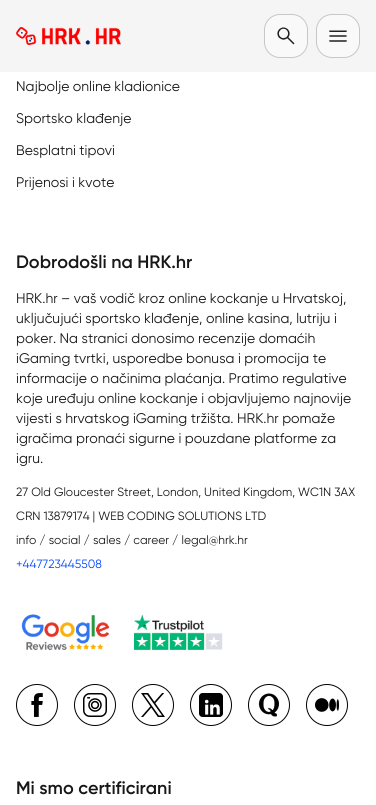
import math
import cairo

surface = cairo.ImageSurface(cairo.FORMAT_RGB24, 376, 805)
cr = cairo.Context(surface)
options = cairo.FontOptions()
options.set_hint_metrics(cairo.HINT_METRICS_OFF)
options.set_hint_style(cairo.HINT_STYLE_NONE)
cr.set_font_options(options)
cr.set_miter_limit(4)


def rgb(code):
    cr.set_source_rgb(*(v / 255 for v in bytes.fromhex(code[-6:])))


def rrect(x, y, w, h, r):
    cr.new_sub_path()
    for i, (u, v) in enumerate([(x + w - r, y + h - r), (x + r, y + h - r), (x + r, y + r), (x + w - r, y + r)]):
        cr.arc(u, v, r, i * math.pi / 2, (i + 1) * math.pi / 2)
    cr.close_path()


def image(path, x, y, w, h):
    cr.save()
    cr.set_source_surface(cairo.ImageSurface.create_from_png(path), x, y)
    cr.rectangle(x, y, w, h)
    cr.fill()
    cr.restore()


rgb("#ffffff")
cr.paint()
rgb("#f5f5f5")
cr.rectangle(0, 0, 376, 72)
cr.fill()
image("img/1.png", 16, 27, 105, 18)
rgb("#f9f9f9")
rrect(264.5, 14.5, 43, 43, 15.5)
cr.fill_preserve()
rgb("#c7c7c7")
cr.set_line_width(1)
cr.stroke()
image("img/2.png", 277, 27, 18, 18)
rgb("#f9f9f9")
rrect(316.5, 14.5, 43, 43, 15.5)
cr.fill_preserve()
rgb("#c7c7c7")
cr.stroke()
image("img/3.png", 329, 30, 18, 12)
image("img/4.png", 21, 614, 89, 36)
image("img/5.png", 134, 614, 89, 36)
cr.arc(37, 705, 20.5, 0, 2 * math.pi)
rgb("#000000")
cr.stroke()
image("img/6.png", 31, 693, 12, 24)
cr.arc(95, 705, 20.5, 0, 2 * math.pi)
cr.stroke()
image("img/7.png", 83, 693, 24, 24)
cr.arc(153, 705, 20.5, 0, 2 * math.pi)
cr.stroke()
image("img/8.png", 141, 693, 24, 24)
cr.arc(211, 705, 20.5, 0, 2 * math.pi)
cr.stroke()
image("img/9.png", 199, 693, 24, 24)
cr.arc(269, 705, 20.5, 0, 2 * math.pi)
cr.stroke()
image("img/10.png", 258, 693, 21, 24)
cr.arc(327, 705, 20.5, 0, 2 * math.pi)
cr.stroke()
image("img/11.png", 315, 698, 24, 14)
cr.select_font_face("Gilroy")
cr.set_font_size(14)
rgb("#171717")
for x, y, s in [
    (16, 91, "Najbolje online kladionice"),
    (16, 123, "Sportsko klađenje"),
    (16, 155, "Besplatni tipovi"),
    (16, 187, "Prijenosi i kvote"),
]:
    cr.move_to(x, y)
    cr.show_text(s)
cr.select_font_face("Gilroy SemiBold")
cr.set_font_size(18)
cr.move_to(16, 268)
cr.show_text("Dobrodošli na HRK.hr")
cr.select_font_face("Gilroy")
cr.set_font_size(14)
for x, y, s in [
    (16, 303, "HRK.hr – vaš vodič kroz online kockanje u Hrvatskoj,"),
    (16, 323, "uključujući sportsko klađenje, online kasina, lutriju i"),
    (16, 343, "poker. Na stranici donosimo recenzije domaćih"),
    (16, 363, "iGaming tvrtki, usporedbe bonusa i promocija te"),
    (16, 383, "informacije o načinima plaćanja. Pratimo regulative"),
    (16, 403, "koje uređuju online kockanje i objavljujemo najnovije"),
    (16, 423, "vijesti s hrvatskog iGaming tržišta. HRK.hr pomaže"),
    (16, 443, "igračima pronaći sigurne i pouzdane platforme za"),
    (16, 463, "igru."),
]:
    cr.move_to(x, y)
    cr.show_text(s)
cr.set_font_size(12)
for x, y, s in [
    (16, 496, "27 Old Gloucester Street, London, United Kingdom, WC1N 3AX"),
    (16, 520, "CRN 13879174 | WEB CODING SOLUTIONS LTD"),
    (16, 544, "info / social / sales / career / legal@hrk.hr"),
]:
    cr.move_to(x, y)
    cr.show_text(s)
rgb("#0047ff")
cr.move_to(16, 568)
cr.show_text("+447723445508")
cr.select_font_face("Gilroy SemiBold")
cr.set_font_size(18)
rgb("#171717")
cr.move_to(16, 794)
cr.show_text("Mi smo certificirani")
surface.write_to_png("page.png")
